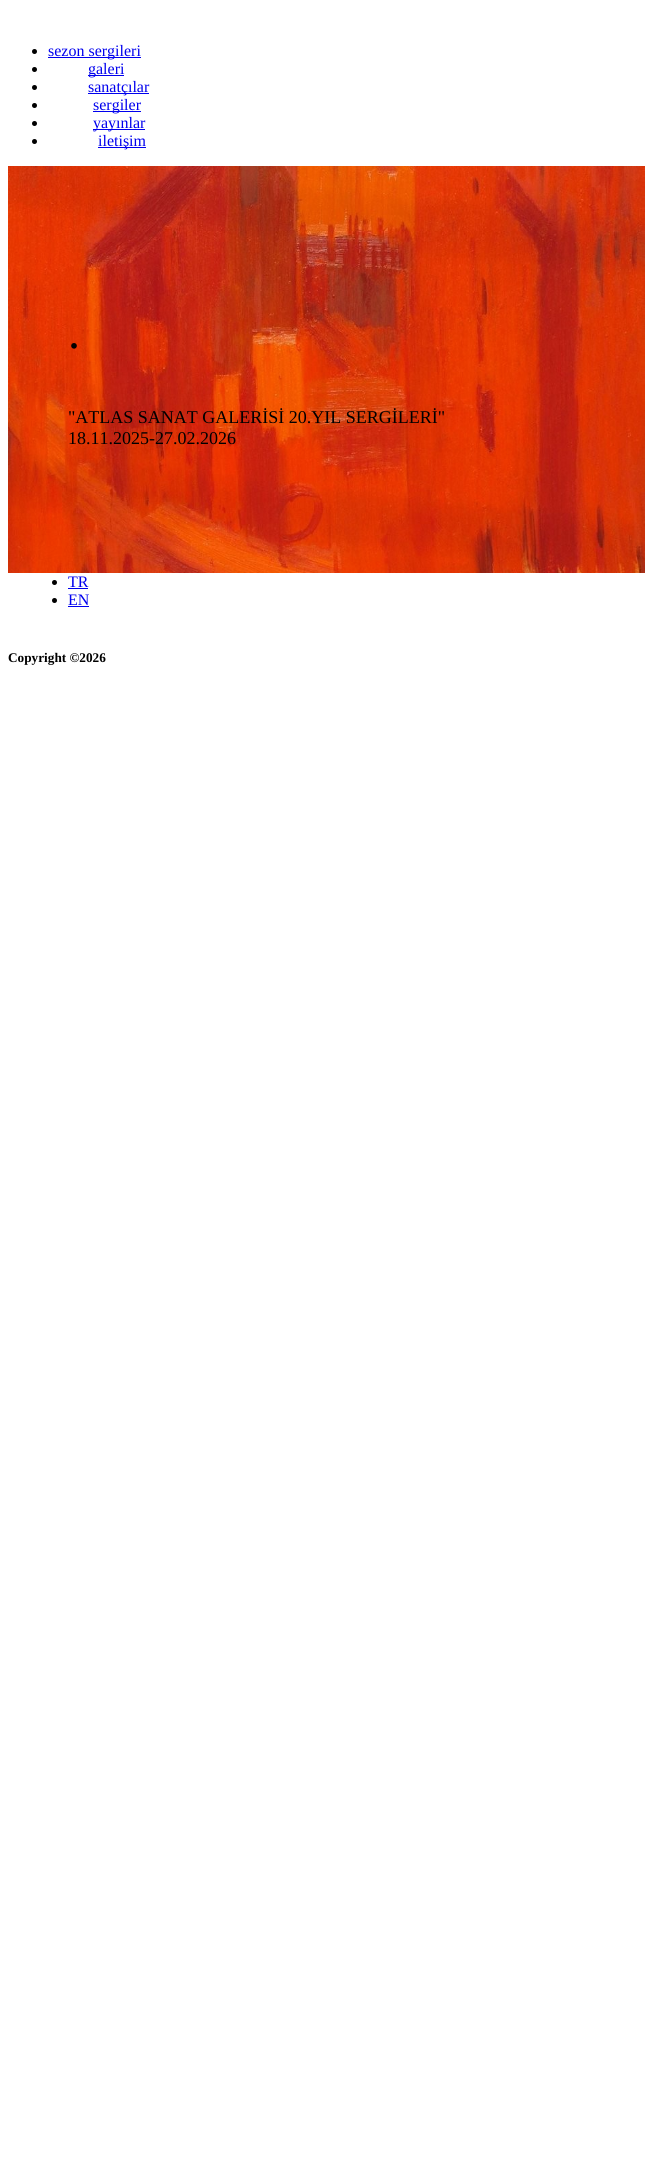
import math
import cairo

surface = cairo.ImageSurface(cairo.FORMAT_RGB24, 653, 2177)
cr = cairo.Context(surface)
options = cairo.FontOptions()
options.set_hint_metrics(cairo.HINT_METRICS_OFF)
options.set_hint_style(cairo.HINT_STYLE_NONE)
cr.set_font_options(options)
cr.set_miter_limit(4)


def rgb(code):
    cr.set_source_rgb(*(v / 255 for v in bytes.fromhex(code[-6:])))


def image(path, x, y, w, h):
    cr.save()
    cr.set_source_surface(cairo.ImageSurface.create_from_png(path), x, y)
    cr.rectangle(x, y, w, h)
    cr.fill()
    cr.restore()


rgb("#ffffff")
cr.paint()
rgb("#000000")
cr.arc(34.5, 51.5, 2.5, 0, 2 * math.pi)
cr.fill()
rgb("#0000ee")
cr.rectangle(48, 57, 93, 1)
cr.fill()
rgb("#000000")
cr.arc(34.5, 69.5, 2.5, 0, 2 * math.pi)
cr.fill()
rgb("#0000ee")
cr.rectangle(88, 75, 36, 1)
cr.fill()
rgb("#000000")
cr.arc(34.5, 87.5, 2.5, 0, 2 * math.pi)
cr.fill()
rgb("#0000ee")
cr.rectangle(88, 93, 61, 1)
cr.fill()
rgb("#000000")
cr.arc(34.5, 105.5, 2.5, 0, 2 * math.pi)
cr.fill()
rgb("#0000ee")
cr.rectangle(93, 111, 48, 1)
cr.fill()
rgb("#000000")
cr.arc(34.5, 123.5, 2.5, 0, 2 * math.pi)
cr.fill()
rgb("#0000ee")
cr.rectangle(93, 129, 52, 1)
cr.fill()
rgb("#000000")
cr.arc(34.5, 141.5, 2.5, 0, 2 * math.pi)
cr.fill()
rgb("#0000ee")
cr.rectangle(98, 147, 48, 1)
cr.fill()
image("img/1.png", 8, 166, 637, 407)
rgb("#000000")
cr.arc(54.5, 582.5, 2.5, 0, 2 * math.pi)
cr.fill()
rgb("#0000ee")
cr.rectangle(68, 588, 20, 1)
cr.fill()
rgb("#000000")
cr.arc(54.5, 600.5, 2.5, 0, 2 * math.pi)
cr.fill()
rgb("#0000ee")
cr.rectangle(68, 606, 21, 1)
cr.fill()
cr.select_font_face("Liberation Serif")
cr.set_font_size(16)
for x, y, s in [
    (48, 56, "sezon sergileri"),
    (88, 74, "galeri"),
    (88, 92, "sanatçılar"),
    (93, 110, "sergiler"),
    (93, 128, "yayınlar"),
    (98, 146, "iletişim"),
]:
    cr.move_to(x, y)
    cr.show_text(s)
cr.set_font_size(48)
rgb("#000000")
cr.move_to(68, 348)
cr.show_text(".")
cr.set_font_size(18)
cr.move_to(68, 423)
cr.show_text("\"ATLAS SANAT GALERİSİ 20.YIL SERGİLERİ\"")
cr.move_to(68, 444)
cr.show_text("18.11.2025-27.02.2026")
cr.set_font_size(16)
rgb("#0000ee")
cr.move_to(68, 587)
cr.show_text("TR")
cr.move_to(68, 605)
cr.show_text("EN")
cr.select_font_face("Liberation Serif", cairo.FONT_SLANT_NORMAL, cairo.FONT_WEIGHT_BOLD)
cr.set_font_size(13.25)
rgb("#000000")
cr.move_to(8, 662)
cr.show_text("Copyright ©2026")
surface.write_to_png("page.png")
